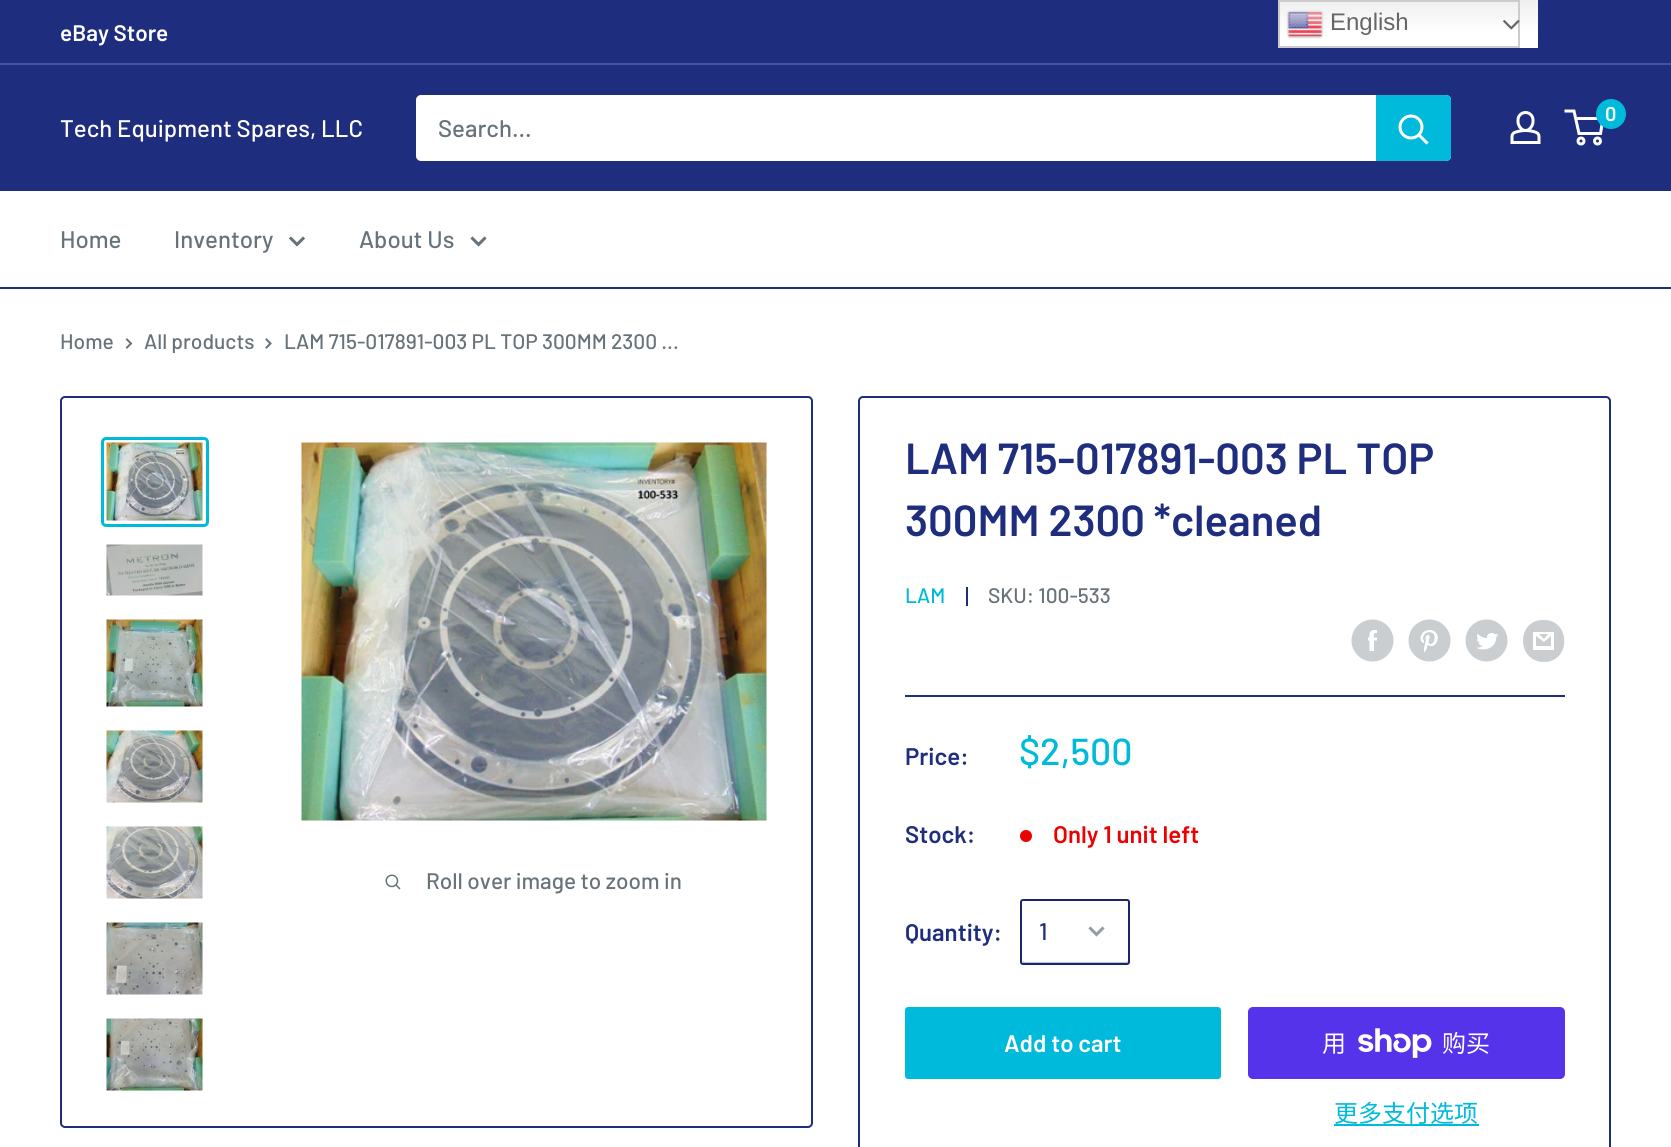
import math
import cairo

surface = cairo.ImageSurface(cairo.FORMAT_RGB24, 1671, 1147)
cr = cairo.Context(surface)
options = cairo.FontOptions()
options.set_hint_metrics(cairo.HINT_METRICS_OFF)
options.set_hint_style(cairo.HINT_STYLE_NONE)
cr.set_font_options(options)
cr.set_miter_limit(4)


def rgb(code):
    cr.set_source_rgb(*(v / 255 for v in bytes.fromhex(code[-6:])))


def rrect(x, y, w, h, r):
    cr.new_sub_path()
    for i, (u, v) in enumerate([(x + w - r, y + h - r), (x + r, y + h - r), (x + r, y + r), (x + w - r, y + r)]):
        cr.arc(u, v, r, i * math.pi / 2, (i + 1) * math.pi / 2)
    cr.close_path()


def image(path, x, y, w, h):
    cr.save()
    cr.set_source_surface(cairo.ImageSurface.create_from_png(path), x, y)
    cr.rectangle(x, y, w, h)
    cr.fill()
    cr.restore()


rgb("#ffffff")
cr.paint()
rgb("#1e2d7d")
cr.rectangle(0, 0, 1671, 63)
cr.fill()
rgb("#46549f")
cr.rectangle(0, 63, 1671, 2)
cr.fill()
gradient = cairo.LinearGradient(1408, 0, 1408, 48)
gradient.add_color_stop_rgba(0, 0.937, 0.937, 0.937, 1)
gradient.add_color_stop_rgba(0.7, 1, 1, 1, 1)
cr.set_source(gradient)
cr.rectangle(1280, 0, 258, 48)
cr.fill()
cr.rectangle(1279, 1, 240, 46)
rgb("#cccccc")
cr.stroke()
image("img/1.png", 1286, 10, 38, 29)
image("img/2.png", 1503, 20, 17, 10)
rgb("#1e2d7d")
cr.rectangle(0, 65, 1671, 126)
cr.fill()
image("img/3.png", 1510, 111, 31, 33)
cr.arc(1581, 141, 3, 0, 2 * math.pi)
rgb("#ffffff")
cr.set_line_width(3)
cr.stroke()
cr.arc(1597.5, 141, 3, 0, 2 * math.pi)
cr.stroke()
cr.new_path()
cr.move_to(1575.5, 118.5)
cr.line_to(1603, 118.5)
cr.line_to(1600.5, 133.5)
cr.line_to(1579, 133.5)
cr.line_to(1574, 111)
cr.line_to(1564.5, 111)
cr.stroke()
rgb("#00badb")
cr.arc(1611, 114, 15, 0, 2 * math.pi)
cr.fill()
rgb("#ffffff")
rrect(416, 95, 1035, 66, 5)
cr.fill()
rgb("#00badb")
cr.new_path()
cr.move_to(1376, 95)
cr.line_to(1446, 95)
cr.curve_to(1449, 95, 1451, 97, 1451, 100)
cr.line_to(1451, 156)
cr.curve_to(1451, 159, 1449, 161, 1446, 161)
cr.line_to(1376, 161)
cr.close_path()
cr.fill()
cr.new_path()
cr.move_to(1426.5, 142.5)
cr.line_to(1419, 135)
rgb("#ffffff")
cr.set_line_cap(cairo.LINE_CAP_SQUARE)
cr.stroke()
cr.arc(1411, 127, 11, 0, 2 * math.pi)
cr.set_line_cap(cairo.LINE_CAP_BUTT)
cr.stroke()
rgb("#1e2d7d")
cr.rectangle(0, 287, 1671, 2)
cr.fill()
cr.new_path()
cr.move_to(303, 238.5)
cr.line_to(297, 244.5)
cr.line_to(291, 238.5)
rgb("#677279")
cr.set_line_cap(cairo.LINE_CAP_SQUARE)
cr.stroke()
cr.new_path()
cr.move_to(484.5, 238.5)
cr.line_to(478.5, 244.5)
cr.line_to(472.5, 238.5)
cr.stroke()
cr.new_path()
cr.move_to(127, 339.5)
cr.line_to(131, 343.5)
cr.line_to(127, 347.5)
cr.set_line_width(2)
cr.stroke()
cr.new_path()
cr.move_to(266.5, 339.5)
cr.line_to(270.5, 343.5)
cr.line_to(266.5, 347.5)
cr.stroke()
rrect(61, 397, 751, 730, 4)
rgb("#1e2d7d")
cr.set_line_cap(cairo.LINE_CAP_BUTT)
cr.stroke()
rrect(102.5, 438.5, 105, 87, 3.5)
rgb("#00badb")
cr.set_line_width(3)
cr.stroke()
image("img/4.png", 106, 442, 97, 79)
image("img/5.png", 106, 544, 97, 52)
image("img/6.png", 106, 619, 97, 88)
image("img/7.png", 106, 730, 97, 73)
image("img/8.png", 106, 826, 97, 73)
image("img/9.png", 106, 922, 97, 73)
image("img/10.png", 106, 1018, 97, 73)
image("img/11.png", 301, 442, 466, 379)
image("img/12.png", 385, 874, 16, 16)
rrect(859, 397, 751, 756, 4)
rgb("#1e2d7d")
cr.set_line_width(2)
cr.stroke()
cr.rectangle(966, 587, 2, 19)
cr.fill()
image("img/13.png", 1351, 619, 43, 43)
image("img/14.png", 1408, 619, 43, 43)
image("img/15.png", 1465, 619, 43, 43)
rgb("#caced0")
cr.new_path()
cr.move_to(1544, 662)
cr.curve_to(1516, 662, 1516, 619, 1544, 620)
cr.curve_to(1571, 620, 1571, 662, 1544, 662)
cr.close_path()
cr.move_to(1539, 634)
cr.line_to(1548, 634)
cr.line_to(1544, 639)
cr.close_path()
cr.move_to(1551, 636)
cr.line_to(1551, 646)
cr.line_to(1536, 646)
cr.line_to(1536, 636)
cr.line_to(1544, 642)
cr.close_path()
cr.move_to(1554, 632)
cr.line_to(1533, 632)
cr.line_to(1533, 650)
cr.line_to(1554, 650)
cr.close_path()
cr.fill()
rgb("#1e2d7d")
cr.rectangle(905, 695, 660, 2)
cr.fill()
rgb("#ee0000")
cr.arc(1026, 836, 6, 0, 2 * math.pi)
cr.fill()
rgb("#bcc0d8")
cr.new_path()
cr.move_to(1022, 961)
cr.line_to(1023, 963)
cr.line_to(1126, 963)
cr.curve_to(1128, 963, 1128, 962, 1128, 961)
cr.line_to(1126, 962)
cr.line_to(1025, 962)
cr.close_path()
cr.fill()
rrect(1021, 900, 108, 64, 2)
rgb("#192668")
cr.stroke()
cr.new_path()
cr.move_to(1102.5, 928.5)
cr.line_to(1096.5, 934.5)
cr.line_to(1090.5, 928.5)
rgb("#959ca1")
cr.set_line_width(3)
cr.set_line_cap(cairo.LINE_CAP_SQUARE)
cr.stroke()
rgb("#00badb")
rrect(905, 1007, 316, 72, 3)
cr.fill()
rgb("#5433eb")
rrect(1248, 1007, 317, 72, 5)
cr.fill()
image("img/16.png", 1358, 1028, 74, 30)
rgb("#00badb")
cr.rectangle(1334, 1124, 145, 2)
cr.fill()
cr.select_font_face("Barlow SemiBold")
cr.set_font_size(22.5)
rgb("#ffffff")
cr.move_to(60, 41)
cr.show_text("eBay Store")
cr.select_font_face("Liberation Sans")
cr.set_font_size(24)
rgb("#666666")
cr.move_to(1330, 30)
cr.show_text("English")
cr.select_font_face("Barlow SemiBold")
cr.set_font_size(20)
rgb("#ffffff")
cr.move_to(1605, 121)
cr.show_text("0")
cr.select_font_face("Barlow Medium")
cr.set_font_size(24)
cr.move_to(60, 137)
cr.show_text("Tech Equipment Spares, LLC")
rgb("#677279")
for x, y, s in [
    (438, 137, "Search..."),
    (60, 248, "Home"),
    (174, 248, "Inventory"),
    (359, 248, "About Us"),
]:
    cr.move_to(x, y)
    cr.show_text(s)
cr.set_font_size(21)
for x, y, s in [
    (60, 349, "Home"),
    (144, 349, "All products"),
    (284, 349, "LAM 715-017891-003 PL TOP 300MM 2300 ..."),
]:
    cr.move_to(x, y)
    cr.show_text(s)
cr.set_font_size(22.5)
cr.move_to(426, 889)
cr.show_text("Roll over image to zoom in")
cr.select_font_face("Barlow SemiBold")
cr.set_font_size(43.5)
rgb("#1e2d7d")
cr.move_to(905, 474)
cr.show_text("LAM 715-017891-003 PL TOP")
cr.move_to(905, 536)
cr.show_text("300MM 2300 *cleaned")
cr.select_font_face("Barlow Medium")
cr.set_font_size(21)
rgb("#00badb")
cr.move_to(905, 603)
cr.show_text("LAM")
rgb("#677279")
cr.move_to(988, 603)
cr.show_text("SKU: 100-533")
cr.select_font_face("Barlow SemiBold")
cr.set_font_size(24)
rgb("#1e2d7d")
cr.move_to(905, 765)
cr.show_text("Price:")
cr.select_font_face("Barlow Medium")
cr.set_font_size(37.5)
rgb("#00badb")
cr.move_to(1019, 765)
cr.show_text("$2,500")
cr.select_font_face("Barlow SemiBold")
cr.set_font_size(24)
rgb("#1e2d7d")
cr.move_to(905, 843)
cr.show_text("Stock:")
rgb("#ee0000")
cr.move_to(1053, 843)
cr.show_text("Only 1 unit left")
rgb("#1e2d7d")
cr.move_to(905, 941)
cr.show_text("Quantity:")
cr.select_font_face("Barlow Medium")
cr.move_to(1039, 940)
cr.show_text("1")
cr.select_font_face("Barlow SemiBold")
rgb("#ffffff")
cr.move_to(1004, 1052)
cr.show_text("Add to cart")
cr.select_font_face("Noto Sans CJK SC")
cr.move_to(1322, 1052)
cr.show_text("用")
cr.move_to(1442, 1052)
cr.show_text("购买")
rgb("#00badb")
cr.move_to(1334, 1122)
cr.show_text("更多支付选项")
surface.write_to_png("page.png")
